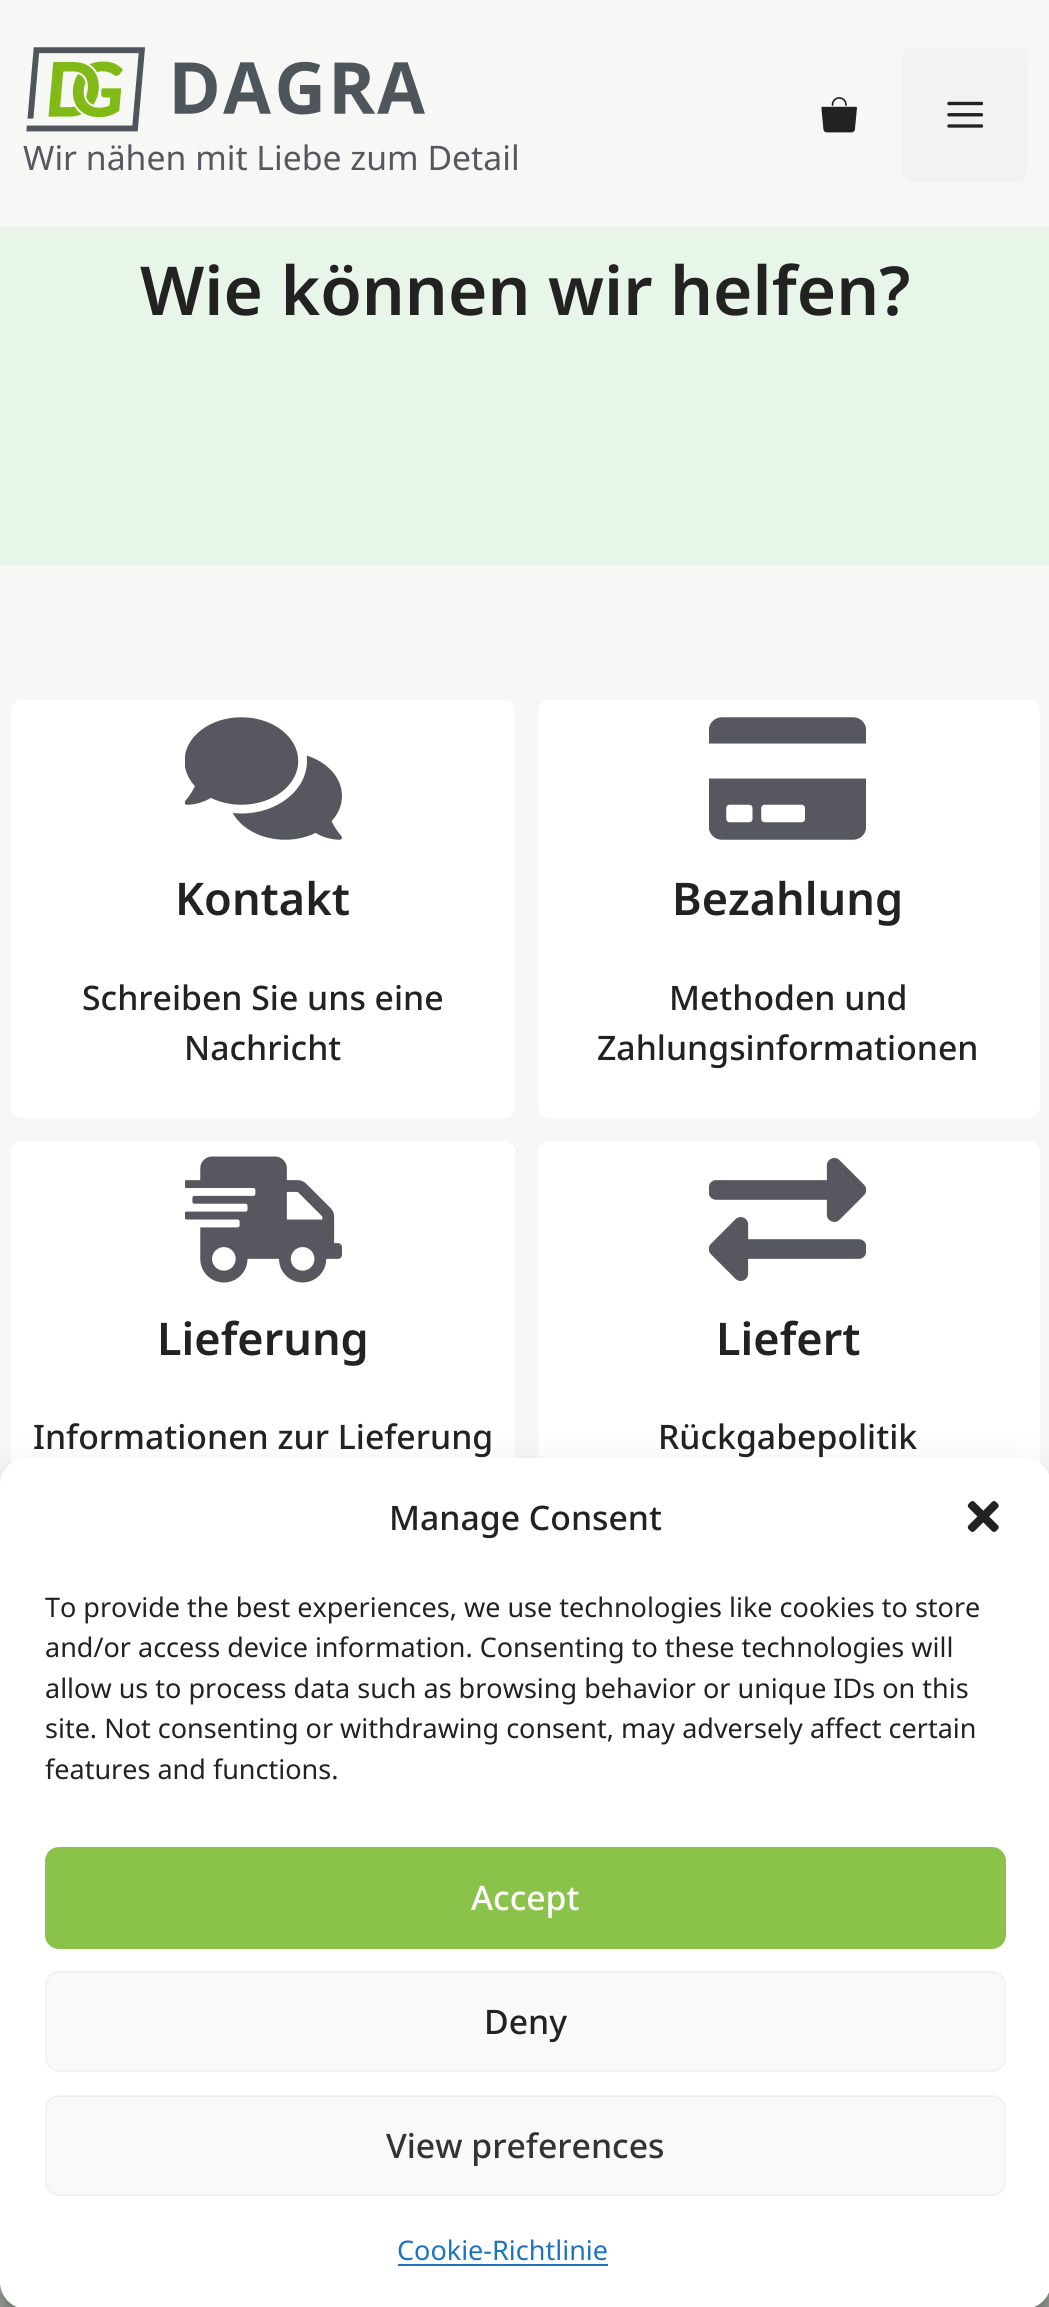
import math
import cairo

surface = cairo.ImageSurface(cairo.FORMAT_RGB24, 1049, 2307)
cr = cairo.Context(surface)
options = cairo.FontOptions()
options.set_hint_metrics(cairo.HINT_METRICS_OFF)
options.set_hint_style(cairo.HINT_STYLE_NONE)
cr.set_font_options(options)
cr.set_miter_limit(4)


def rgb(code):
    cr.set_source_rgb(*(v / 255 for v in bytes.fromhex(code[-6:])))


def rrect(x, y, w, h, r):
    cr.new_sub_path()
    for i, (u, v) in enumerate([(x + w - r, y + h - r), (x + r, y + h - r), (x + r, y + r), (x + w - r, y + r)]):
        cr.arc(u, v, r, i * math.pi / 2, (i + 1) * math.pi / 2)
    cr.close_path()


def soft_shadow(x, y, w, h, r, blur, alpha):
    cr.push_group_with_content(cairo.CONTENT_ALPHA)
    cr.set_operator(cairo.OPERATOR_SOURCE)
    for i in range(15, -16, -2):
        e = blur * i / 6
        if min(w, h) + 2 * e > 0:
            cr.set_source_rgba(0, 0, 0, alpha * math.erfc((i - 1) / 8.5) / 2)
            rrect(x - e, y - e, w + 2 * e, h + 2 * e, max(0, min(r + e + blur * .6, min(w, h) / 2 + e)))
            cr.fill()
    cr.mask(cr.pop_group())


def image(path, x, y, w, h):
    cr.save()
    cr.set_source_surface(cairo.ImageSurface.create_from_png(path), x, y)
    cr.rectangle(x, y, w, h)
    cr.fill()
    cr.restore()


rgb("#f7f8f6")
cr.paint()
image("img/1.png", 26, 47, 399, 85)
image("img/2.png", 821, 97, 36, 36)
rgb("#f2f3f1")
rrect(902, 47, 126, 135, 11)
cr.fill()
image("img/3.png", 947, 101, 36, 27)
rgb("#e8f5e9")
cr.rectangle(0, 227, 1049, 338)
cr.fill()
rgb("#ffffff")
rrect(11, 700, 504, 418, 11)
cr.fill()
image("img/4.png", 185, 717, 157, 123)
rrect(538, 700, 502, 418, 11)
cr.fill()
image("img/5.png", 709, 717, 157, 123)
rrect(11, 1141, 504, 367, 11)
cr.fill()
image("img/6.png", 185, 1156, 157, 127)
rrect(538, 1141, 502, 367, 11)
cr.fill()
image("img/7.png", 709, 1158, 157, 123)
rgb("#a7b0a5")
cr.rectangle(0, 2282, 1049, 25)
cr.fill()
rgb("#000000")
soft_shadow(0, 1472, 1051, 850, 27, 7, 0.23)
soft_shadow(0, 1481, 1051, 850, 27, 22.5, 0.19)
rgb("#ffffff")
rrect(0, 1458, 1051, 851, 27)
cr.fill()
image("img/8.png", 967, 1501, 32, 31)
rgb("#8bc34a")
rrect(46, 1848, 959, 100, 13)
cr.fill_preserve()
cr.stroke()
rgb("#f9f9f9")
rrect(46, 1972, 959, 99, 13)
cr.fill_preserve()
rgb("#f2f2f2")
cr.stroke()
rgb("#f9f9f9")
rrect(46, 2096, 959, 99, 13)
cr.fill_preserve()
rgb("#f2f2f2")
cr.stroke()
rgb("#1e73be")
cr.rectangle(398, 2264, 210, 2)
cr.fill()
cr.select_font_face("Noto Sans")
cr.set_font_size(33.75)
rgb("#575760")
cr.move_to(23, 170)
cr.show_text("Wir nähen mit Liebe zum Detail")
cr.select_font_face("Noto Sans SemiBold")
cr.set_font_size(67.5)
rgb("#222222")
cr.move_to(140, 315)
cr.show_text("Wie können wir helfen?")
cr.set_font_size(45)
cr.move_to(175, 915)
cr.show_text("Kontakt")
cr.select_font_face("Noto Sans Medium")
cr.set_font_size(33.75)
cr.move_to(82, 1010)
cr.show_text("Schreiben Sie uns eine")
cr.move_to(184, 1060)
cr.show_text("Nachricht")
cr.select_font_face("Noto Sans SemiBold")
cr.set_font_size(45)
cr.move_to(672, 915)
cr.show_text("Bezahlung")
cr.select_font_face("Noto Sans Medium")
cr.set_font_size(33.75)
cr.move_to(669, 1010)
cr.show_text("Methoden und")
cr.move_to(597, 1060)
cr.show_text("Zahlungsinformationen")
cr.select_font_face("Noto Sans SemiBold")
cr.set_font_size(45)
cr.move_to(157, 1355)
cr.show_text("Lieferung")
cr.select_font_face("Noto Sans Medium")
cr.set_font_size(33.75)
cr.move_to(33, 1449)
cr.show_text("Informationen zur Lieferung")
cr.select_font_face("Noto Sans SemiBold")
cr.set_font_size(45)
cr.move_to(716, 1355)
cr.show_text("Liefert")
cr.select_font_face("Noto Sans Medium")
cr.set_font_size(33.75)
cr.move_to(658, 1449)
cr.show_text("Rückgabepolitik")
cr.move_to(389, 1530)
cr.show_text("Manage Consent")
cr.select_font_face("Noto Sans")
cr.set_font_size(27)
for x, y, s in [
    (45, 1617, "To provide the best experiences, we use technologies like cookies to store"),
    (45, 1657, "and/or access device information. Consenting to these technologies will"),
    (45, 1698, "allow us to process data such as browsing behavior or unique IDs on this"),
    (45, 1738, "site. Not consenting or withdrawing consent, may adversely affect certain"),
    (45, 1779, "features and functions."),
]:
    cr.move_to(x, y)
    cr.show_text(s)
cr.select_font_face("Noto Sans Medium")
cr.set_font_size(33.75)
rgb("#ffffff")
cr.move_to(471, 1910)
cr.show_text("Accept")
rgb("#222222")
cr.move_to(484, 2034)
cr.show_text("Deny")
rgb("#333333")
cr.move_to(386, 2158)
cr.show_text("View preferences")
cr.select_font_face("Noto Sans")
cr.set_font_size(27)
rgb("#1e73be")
cr.move_to(397, 2260)
cr.show_text("Cookie-Richtlinie")
surface.write_to_png("page.png")
